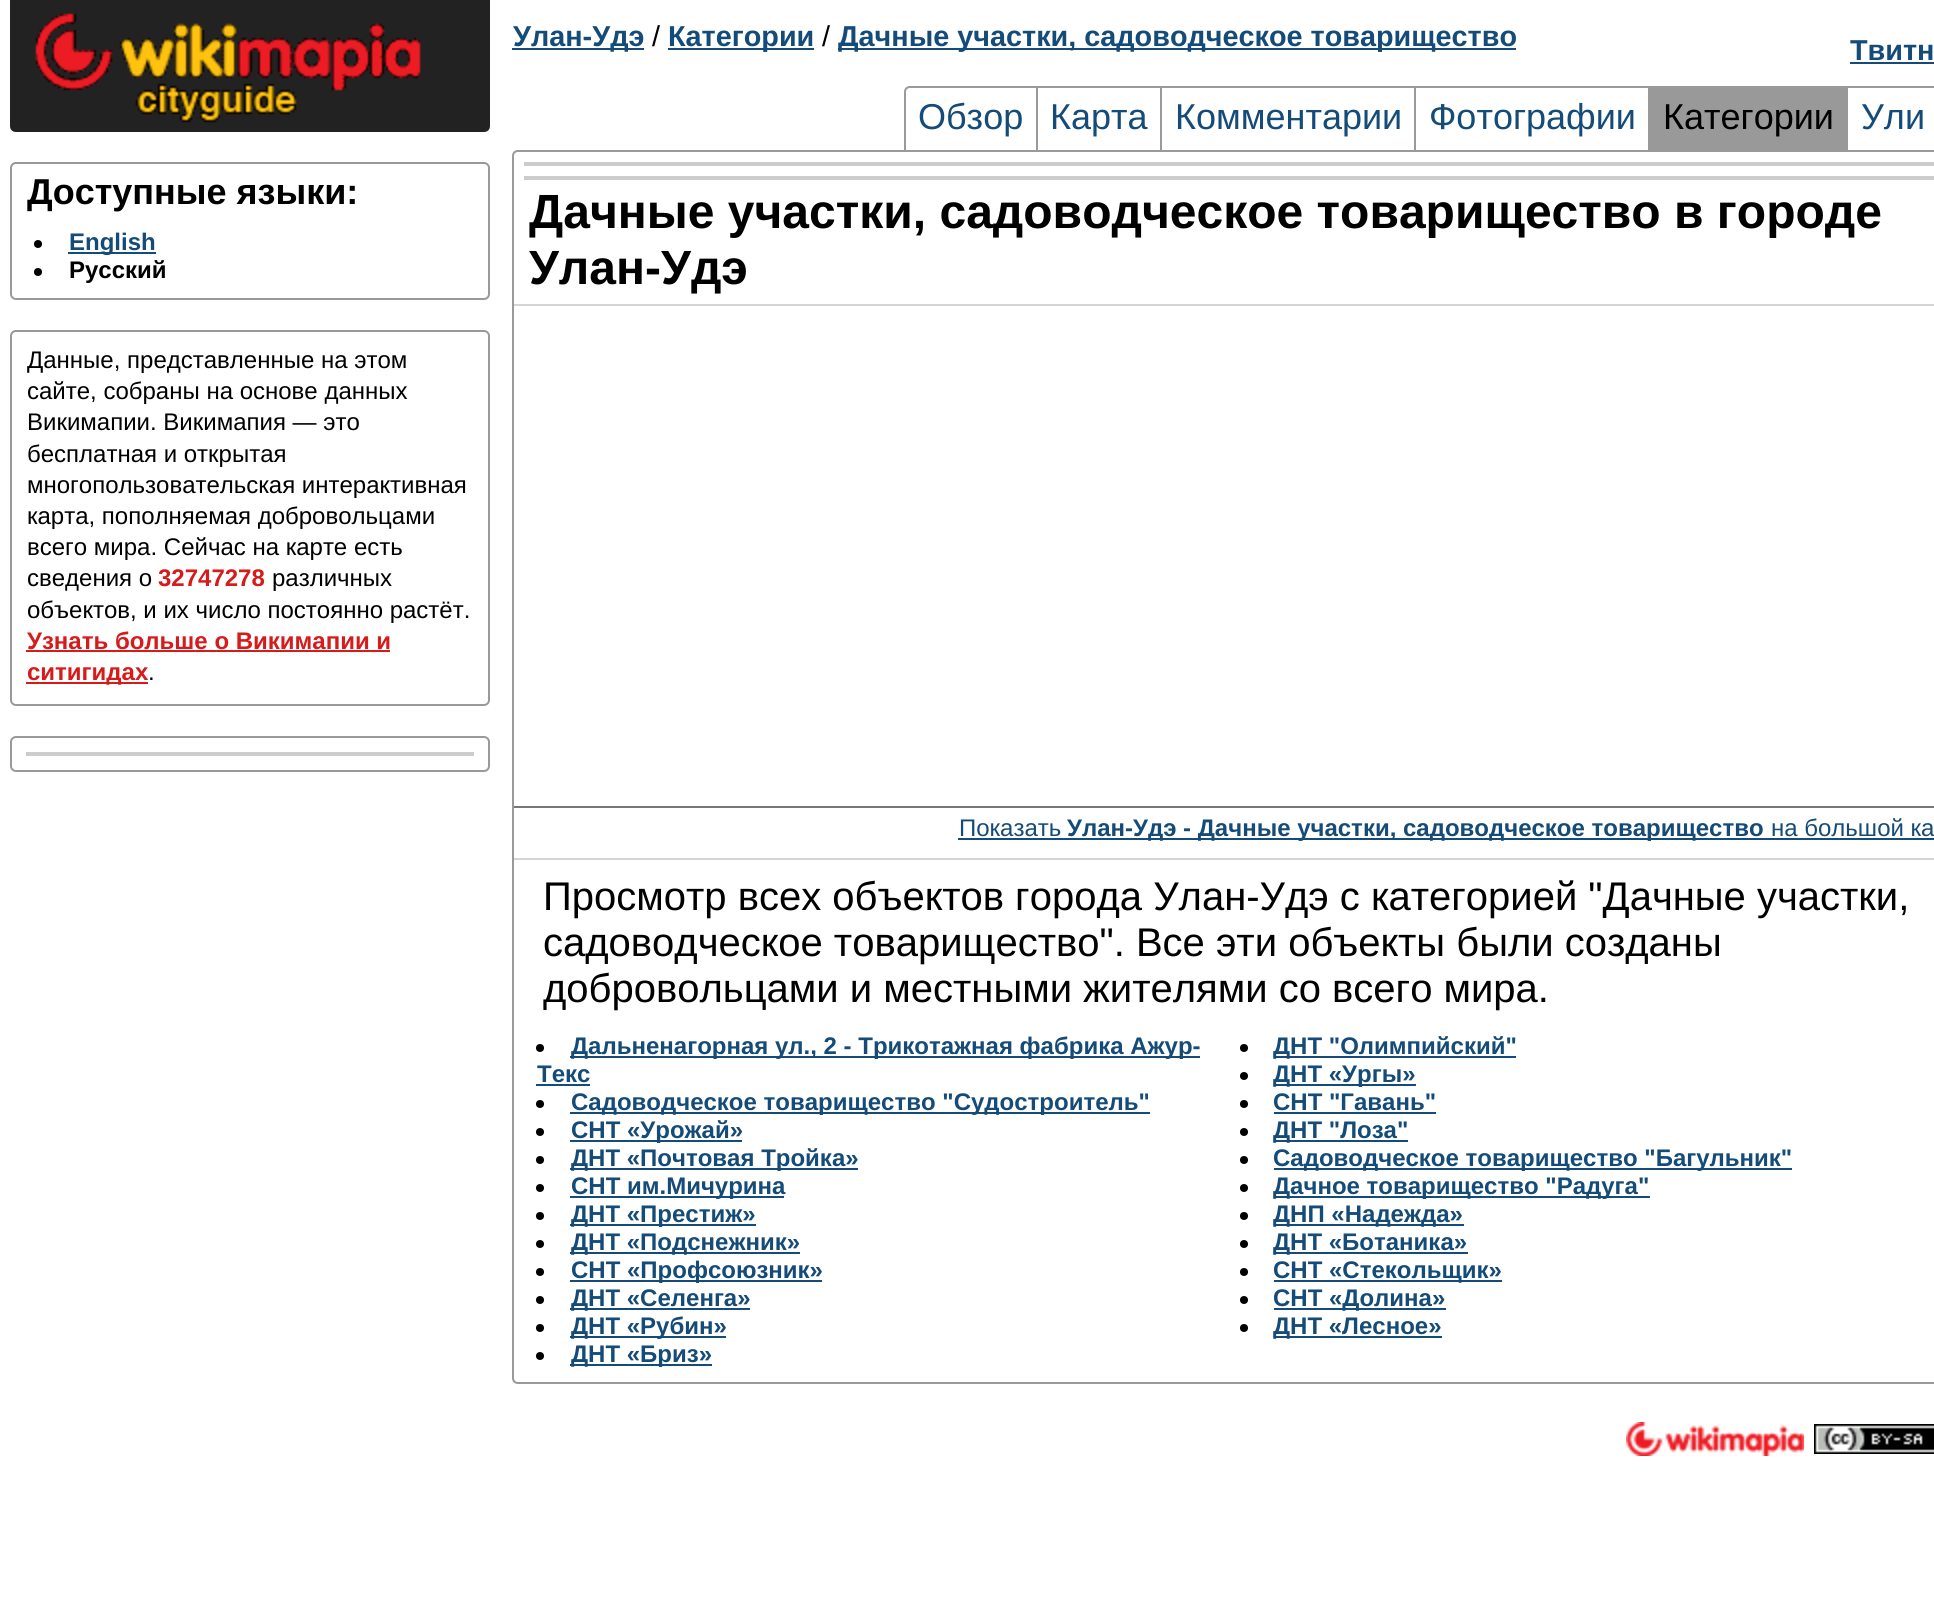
import math
import cairo

surface = cairo.ImageSurface(cairo.FORMAT_RGB24, 1934, 1624)
cr = cairo.Context(surface)
options = cairo.FontOptions()
options.set_hint_metrics(cairo.HINT_METRICS_OFF)
options.set_hint_style(cairo.HINT_STYLE_NONE)
cr.set_font_options(options)
cr.set_miter_limit(4)


def rgb(code):
    cr.set_source_rgb(*(v / 255 for v in bytes.fromhex(code[-6:])))


def rrect(x, y, w, h, r):
    cr.new_sub_path()
    for i, (u, v) in enumerate([(x + w - r, y + h - r), (x + r, y + h - r), (x + r, y + r), (x + w - r, y + r)]):
        cr.arc(u, v, r, i * math.pi / 2, (i + 1) * math.pi / 2)
    cr.close_path()


def image(path, x, y, w, h):
    cr.save()
    cr.set_source_surface(cairo.ImageSurface.create_from_png(path), x, y)
    cr.rectangle(x, y, w, h)
    cr.fill()
    cr.restore()


rgb("#ffffff")
cr.paint()
for x, y, w, h, color in [
    (512, 48, 132, 2, "#144b78"),
    (668, 48, 146, 2, "#144b78"),
    (838, 48, 678, 2, "#144b78"),
    (1850, 62, 84, 2, "#144b78"),
]:
    rgb(color)
    cr.rectangle(x, y, w, h)
    cr.fill()
cr.new_path()
cr.move_to(910, 87)
cr.line_to(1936, 87)
cr.curve_to(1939, 87, 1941, 89, 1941, 92)
cr.line_to(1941, 151)
cr.line_to(905, 151)
cr.line_to(905, 92)
cr.curve_to(905, 89, 907, 87, 910, 87)
cr.close_path()
rgb("#999999")
cr.stroke()
for x, y, w, h, color in [
    (1036, 88, 2, 62, "#999999"),
    (1160, 88, 2, 62, "#999999"),
    (1414, 88, 2, 62, "#999999"),
    (1648, 88, 200, 62, "#999999"),
]:
    rgb(color)
    cr.rectangle(x, y, w, h)
    cr.fill()
rgb("#222222")
cr.new_path()
cr.move_to(11, 1)
cr.line_to(489, 1)
cr.line_to(489, 126)
cr.curve_to(489, 129, 487, 131, 484, 131)
cr.line_to(16, 131)
cr.curve_to(13, 131, 11, 129, 11, 126)
cr.close_path()
cr.fill_preserve()
cr.stroke()
image("img/1.png", 35, 13, 386, 110)
rrect(11, 163, 478, 136, 5)
rgb("#999999")
cr.stroke()
rgb("#000000")
cr.arc(38, 244, 4, 0, 2 * math.pi)
cr.fill()
rgb("#144b78")
cr.rectangle(68, 252, 88, 2)
cr.fill()
rgb("#000000")
cr.arc(38, 272, 4, 0, 2 * math.pi)
cr.fill()
rrect(11, 331, 478, 374, 5)
rgb("#999999")
cr.stroke()
rgb("#d71a1a")
cr.rectangle(26, 650, 364, 2)
cr.fill()
cr.rectangle(26, 682, 122, 2)
cr.fill()
rrect(11, 737, 478, 34, 5)
rgb("#999999")
cr.stroke()
rgb("#cccccc")
cr.rectangle(26, 752, 448, 4)
cr.fill()
cr.new_path()
cr.move_to(518, 151)
cr.line_to(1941, 151)
cr.line_to(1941, 1378)
cr.curve_to(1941, 1381, 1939, 1383, 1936, 1383)
cr.line_to(518, 1383)
cr.curve_to(515, 1383, 513, 1381, 513, 1378)
cr.line_to(513, 156)
cr.curve_to(513, 153, 515, 151, 518, 151)
cr.close_path()
rgb("#999999")
cr.stroke()
for x, y, w, h, color in [
    (524, 162, 1410, 4, "#cccccc"),
    (524, 176, 1410, 4, "#cccccc"),
    (514, 304, 1420, 2, "#d5d5d5"),
    (514, 806, 1420, 2, "#777777"),
    (958, 838, 976, 2, "#144b78"),
    (514, 858, 1420, 2, "#d5d5d5"),
]:
    rgb(color)
    cr.rectangle(x, y, w, h)
    cr.fill()
rgb("#000000")
cr.arc(540, 1048, 4, 0, 2 * math.pi)
cr.fill()
rgb("#144b78")
cr.rectangle(570, 1056, 630, 2)
cr.fill()
cr.rectangle(536, 1084, 54, 2)
cr.fill()
rgb("#000000")
cr.arc(1244, 1048, 4, 0, 2 * math.pi)
cr.fill()
rgb("#144b78")
cr.rectangle(1274, 1056, 242, 2)
cr.fill()
rgb("#000000")
cr.arc(1244, 1076, 4, 0, 2 * math.pi)
cr.fill()
rgb("#144b78")
cr.rectangle(1274, 1084, 142, 2)
cr.fill()
rgb("#000000")
cr.arc(540, 1104, 4, 0, 2 * math.pi)
cr.fill()
rgb("#144b78")
cr.rectangle(570, 1112, 580, 2)
cr.fill()
rgb("#000000")
cr.arc(1244, 1104, 4, 0, 2 * math.pi)
cr.fill()
rgb("#144b78")
cr.rectangle(1274, 1112, 162, 2)
cr.fill()
rgb("#000000")
cr.arc(540, 1132, 4, 0, 2 * math.pi)
cr.fill()
rgb("#144b78")
cr.rectangle(570, 1140, 172, 2)
cr.fill()
rgb("#000000")
cr.arc(1244, 1132, 4, 0, 2 * math.pi)
cr.fill()
rgb("#144b78")
cr.rectangle(1274, 1140, 134, 2)
cr.fill()
rgb("#000000")
cr.arc(540, 1160, 4, 0, 2 * math.pi)
cr.fill()
rgb("#144b78")
cr.rectangle(570, 1168, 288, 2)
cr.fill()
rgb("#000000")
cr.arc(1244, 1160, 4, 0, 2 * math.pi)
cr.fill()
rgb("#144b78")
cr.rectangle(1274, 1168, 518, 2)
cr.fill()
rgb("#000000")
cr.arc(540, 1188, 4, 0, 2 * math.pi)
cr.fill()
rgb("#144b78")
cr.rectangle(570, 1196, 214, 2)
cr.fill()
rgb("#000000")
cr.arc(1244, 1188, 4, 0, 2 * math.pi)
cr.fill()
rgb("#144b78")
cr.rectangle(1274, 1196, 376, 2)
cr.fill()
rgb("#000000")
cr.arc(540, 1216, 4, 0, 2 * math.pi)
cr.fill()
rgb("#144b78")
cr.rectangle(570, 1224, 186, 2)
cr.fill()
rgb("#000000")
cr.arc(1244, 1216, 4, 0, 2 * math.pi)
cr.fill()
rgb("#144b78")
cr.rectangle(1274, 1224, 190, 2)
cr.fill()
rgb("#000000")
cr.arc(540, 1244, 4, 0, 2 * math.pi)
cr.fill()
rgb("#144b78")
cr.rectangle(570, 1252, 230, 2)
cr.fill()
rgb("#000000")
cr.arc(1244, 1244, 4, 0, 2 * math.pi)
cr.fill()
rgb("#144b78")
cr.rectangle(1274, 1252, 194, 2)
cr.fill()
rgb("#000000")
cr.arc(540, 1272, 4, 0, 2 * math.pi)
cr.fill()
rgb("#144b78")
cr.rectangle(570, 1280, 252, 2)
cr.fill()
rgb("#000000")
cr.arc(1244, 1272, 4, 0, 2 * math.pi)
cr.fill()
rgb("#144b78")
cr.rectangle(1274, 1280, 228, 2)
cr.fill()
rgb("#000000")
cr.arc(540, 1300, 4, 0, 2 * math.pi)
cr.fill()
rgb("#144b78")
cr.rectangle(570, 1308, 180, 2)
cr.fill()
rgb("#000000")
cr.arc(1244, 1300, 4, 0, 2 * math.pi)
cr.fill()
rgb("#144b78")
cr.rectangle(1274, 1308, 172, 2)
cr.fill()
rgb("#000000")
cr.arc(540, 1328, 4, 0, 2 * math.pi)
cr.fill()
rgb("#144b78")
cr.rectangle(570, 1336, 156, 2)
cr.fill()
rgb("#000000")
cr.arc(1244, 1328, 4, 0, 2 * math.pi)
cr.fill()
rgb("#144b78")
cr.rectangle(1274, 1336, 168, 2)
cr.fill()
rgb("#000000")
cr.arc(540, 1356, 4, 0, 2 * math.pi)
cr.fill()
rgb("#144b78")
cr.rectangle(570, 1364, 142, 2)
cr.fill()
image("img/2.png", 1626, 1422, 178, 34)
image("img/3.png", 1814, 1424, 120, 30)
cr.select_font_face("Liberation Sans", cairo.FONT_SLANT_NORMAL, cairo.FONT_WEIGHT_BOLD)
cr.set_font_size(28.8)
cr.move_to(513, 46)
cr.show_text("Улан-Удэ")
cr.select_font_face("Liberation Sans")
rgb("#000000")
cr.move_to(652, 46)
cr.show_text("/")
cr.select_font_face("Liberation Sans", cairo.FONT_SLANT_NORMAL, cairo.FONT_WEIGHT_BOLD)
rgb("#144b78")
cr.move_to(668, 46)
cr.show_text("Категории")
cr.select_font_face("Liberation Sans")
rgb("#000000")
cr.move_to(822, 46)
cr.show_text("/")
cr.select_font_face("Liberation Sans", cairo.FONT_SLANT_NORMAL, cairo.FONT_WEIGHT_BOLD)
rgb("#144b78")
cr.move_to(838, 46)
cr.show_text("Дачные участки, садоводческое товарищество")
cr.move_to(1850, 60)
cr.show_text("Твитн")
cr.select_font_face("Liberation Sans")
cr.set_font_size(36)
for x, y, s in [
    (918, 129, "Обзор"),
    (1050, 129, "Карта"),
    (1175, 129, "Комментарии"),
    (1429, 129, "Фотографии"),
]:
    cr.move_to(x, y)
    cr.show_text(s)
rgb("#000000")
cr.move_to(1663, 129)
cr.show_text("Категории")
rgb("#144b78")
cr.move_to(1861, 129)
cr.show_text("Ули")
cr.select_font_face("Liberation Sans", cairo.FONT_SLANT_NORMAL, cairo.FONT_WEIGHT_BOLD)
rgb("#000000")
cr.move_to(27, 204)
cr.show_text("Доступные языки:")
cr.set_font_size(24)
rgb("#144b78")
cr.move_to(69, 250)
cr.show_text("English")
rgb("#000000")
cr.move_to(69, 278)
cr.show_text("Русский")
cr.select_font_face("Liberation Sans")
for x, y, s in [
    (27, 368, "Данные, представленные на этом"),
    (27, 399, "сайте, собраны на основе данных"),
    (27, 430, "Викимапии. Викимапия — это"),
    (27, 462, "бесплатная и открытая"),
    (27, 493, "многопользовательская интерактивная"),
    (27, 524, "карта, пополняемая добровольцами"),
    (27, 555, "всего мира. Сейчас на карте есть"),
    (27, 586, "сведения о"),
]:
    cr.move_to(x, y)
    cr.show_text(s)
cr.select_font_face("Liberation Sans", cairo.FONT_SLANT_NORMAL, cairo.FONT_WEIGHT_BOLD)
rgb("#d71a1a")
cr.move_to(158, 586)
cr.show_text("32747278")
cr.select_font_face("Liberation Sans")
rgb("#000000")
cr.move_to(272, 586)
cr.show_text("различных")
cr.move_to(27, 618)
cr.show_text("объектов, и их число постоянно растёт.")
cr.select_font_face("Liberation Sans", cairo.FONT_SLANT_NORMAL, cairo.FONT_WEIGHT_BOLD)
rgb("#d71a1a")
cr.move_to(27, 649)
cr.show_text("Узнать больше о Викимапии и")
cr.move_to(27, 680)
cr.show_text("ситигидах")
cr.select_font_face("Liberation Sans")
rgb("#000000")
cr.move_to(148, 680)
cr.show_text(".")
cr.select_font_face("Liberation Sans", cairo.FONT_SLANT_NORMAL, cairo.FONT_WEIGHT_BOLD)
cr.set_font_size(48)
cr.move_to(529, 228)
cr.show_text("Дачные участки, садоводческое товарищество в городе")
cr.move_to(529, 284)
cr.show_text("Улан-Удэ")
cr.select_font_face("Liberation Sans")
cr.set_font_size(24)
rgb("#144b78")
cr.move_to(959, 836)
cr.show_text("Показать")
cr.select_font_face("Liberation Sans", cairo.FONT_SLANT_NORMAL, cairo.FONT_WEIGHT_BOLD)
cr.move_to(1067, 836)
cr.show_text("Улан-Удэ - Дачные участки, садоводческое товарищество")
cr.select_font_face("Liberation Sans")
cr.move_to(1771, 836)
cr.show_text("на большой ка")
cr.set_font_size(40)
rgb("#000000")
for x, y, s in [
    (543, 910, "Просмотр всех объектов города Улан-Удэ с категорией \"Дачные участки,"),
    (543, 956, "садоводческое товарищество\". Все эти объекты были созданы"),
    (543, 1002, "добровольцами и местными жителями со всего мира."),
]:
    cr.move_to(x, y)
    cr.show_text(s)
cr.select_font_face("Liberation Sans", cairo.FONT_SLANT_NORMAL, cairo.FONT_WEIGHT_BOLD)
cr.set_font_size(24)
rgb("#144b78")
for x, y, s in [
    (571, 1054, "Дальненагорная ул., 2 - Трикотажная фабрика Ажур-"),
    (537, 1082, "Текс"),
    (1273, 1054, "ДНТ \"Олимпийский\""),
    (1273, 1082, "ДНТ «Ургы»"),
    (571, 1110, "Садоводческое товарищество \"Судостроитель\""),
    (1273, 1110, "СНТ \"Гавань\""),
    (571, 1138, "СНТ «Урожай»"),
    (1273, 1138, "ДНТ \"Лоза\""),
    (571, 1166, "ДНТ «Почтовая Тройка»"),
    (1273, 1166, "Садоводческое товарищество \"Багульник\""),
    (571, 1194, "СНТ им.Мичурина"),
    (1273, 1194, "Дачное товарищество \"Радуга\""),
    (571, 1222, "ДНТ «Престиж»"),
    (1273, 1222, "ДНП «Надежда»"),
    (571, 1250, "ДНТ «Подснежник»"),
    (1273, 1250, "ДНТ «Ботаника»"),
    (571, 1278, "СНТ «Профсоюзник»"),
    (1273, 1278, "СНТ «Стекольщик»"),
    (571, 1306, "ДНТ «Селенга»"),
    (1273, 1306, "СНТ «Долина»"),
    (571, 1334, "ДНТ «Рубин»"),
    (1273, 1334, "ДНТ «Лесное»"),
    (571, 1362, "ДНТ «Бриз»"),
]:
    cr.move_to(x, y)
    cr.show_text(s)
surface.write_to_png("page.png")
